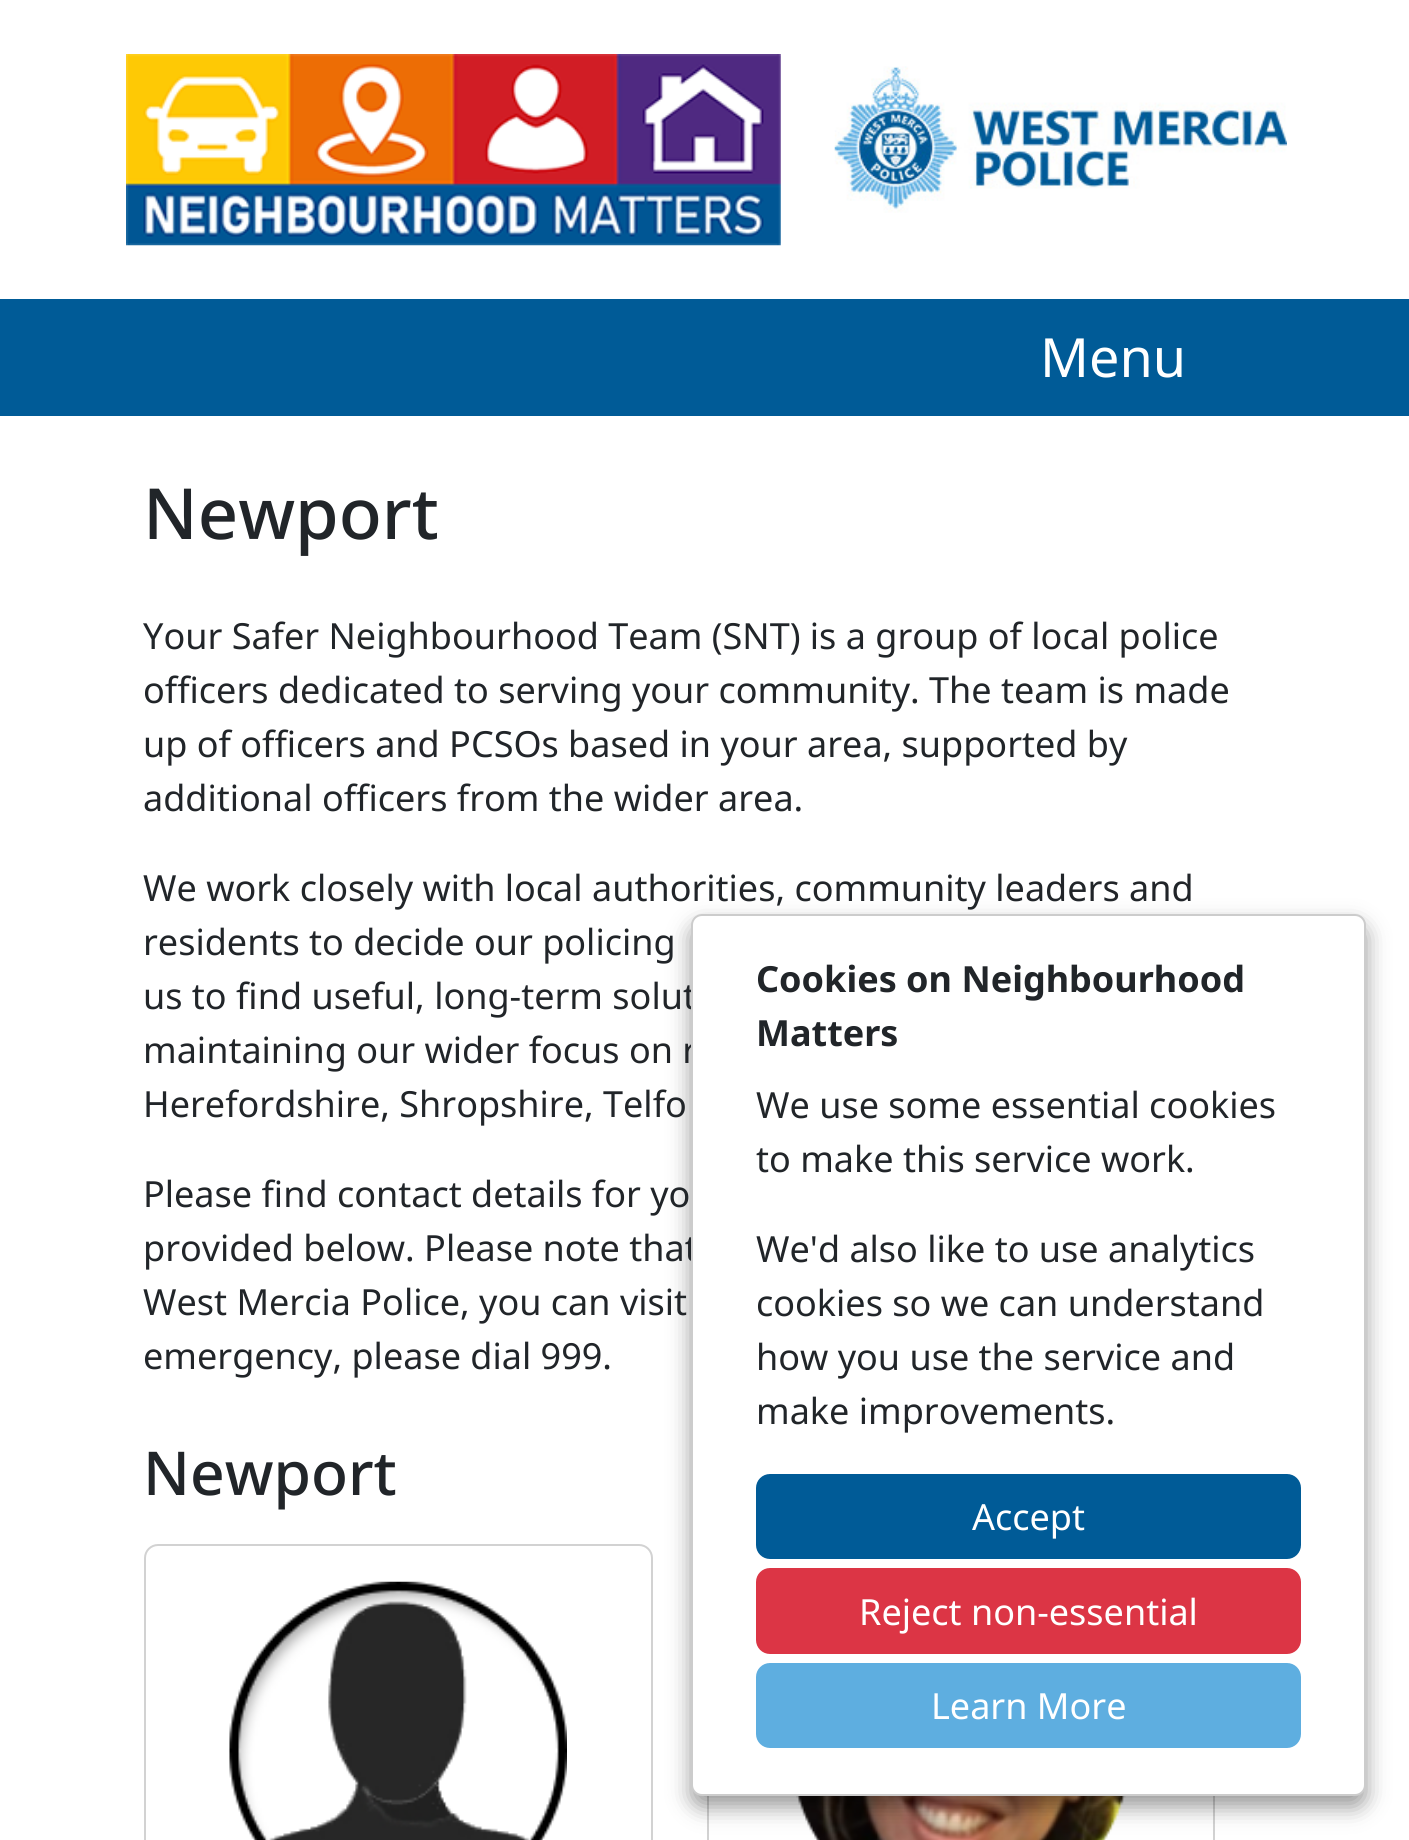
import math
import cairo

surface = cairo.ImageSurface(cairo.FORMAT_RGB24, 1409, 1840)
cr = cairo.Context(surface)
options = cairo.FontOptions()
options.set_hint_metrics(cairo.HINT_METRICS_OFF)
options.set_hint_style(cairo.HINT_STYLE_NONE)
cr.set_font_options(options)
cr.set_miter_limit(4)


def rgb(code):
    cr.set_source_rgb(*(v / 255 for v in bytes.fromhex(code[-6:])))


def rrect(x, y, w, h, r):
    cr.new_sub_path()
    for i, (u, v) in enumerate([(x + w - r, y + h - r), (x + r, y + h - r), (x + r, y + r), (x + w - r, y + r)]):
        cr.arc(u, v, r, i * math.pi / 2, (i + 1) * math.pi / 2)
    cr.close_path()


def soft_shadow(x, y, w, h, r, blur, alpha):
    cr.push_group_with_content(cairo.CONTENT_ALPHA)
    cr.set_operator(cairo.OPERATOR_SOURCE)
    for i in range(15, -16, -2):
        e = blur * i / 6
        if min(w, h) + 2 * e > 0:
            cr.set_source_rgba(0, 0, 0, alpha * math.erfc((i - 1) / 8.5) / 2)
            rrect(x - e, y - e, w + 2 * e, h + 2 * e, max(0, min(r + e + blur * .6, min(w, h) / 2 + e)))
            cr.fill()
    cr.mask(cr.pop_group())


def image(path, x, y, w, h):
    cr.save()
    cr.set_source_surface(cairo.ImageSurface.create_from_png(path), x, y)
    cr.rectangle(x, y, w, h)
    cr.fill()
    cr.restore()


rgb("#ffffff")
cr.paint()
image("img/1.png", 126, 54, 655, 192)
image("img/2.png", 834, 66, 453, 147)
rgb("#005b97")
cr.rectangle(0, 299, 1409, 117)
cr.fill()
rrect(145, 1545, 507, 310, 13)
rgb("#d2d2d2")
cr.stroke()
image("img/3.png", 229, 1581, 338, 259)
cr.rectangle(708, 1545, 506, 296)
cr.stroke()
image("img/4.png", 796, 1796, 330, 44)
rgb("#000000")
soft_shadow(691, 925, 675, 882, 11, 11, 0.4)
cr.select_font_face("Noto Sans")
cr.set_font_size(54)
rgb("#ffffff")
cr.move_to(1040, 377)
cr.show_text("Menu")
cr.select_font_face("Noto Sans Medium")
cr.set_font_size(70.5)
rgb("#212529")
cr.move_to(143, 539)
cr.show_text("Newport")
cr.select_font_face("Noto Sans")
cr.set_font_size(36)
for x, y, s in [
    (143, 649, "Your Safer Neighbourhood Team (SNT) is a group of local police"),
    (143, 703, "officers dedicated to serving your community. The team is made"),
    (143, 757, "up of officers and PCSOs based in your area, supported by"),
    (143, 811, "additional officers from the wider area."),
    (143, 901, "We work closely with local authorities, community leaders and"),
    (143, 955, "residents to decide our policing"),
    (143, 1009, "us to find useful, long-term solut"),
    (143, 1063, "maintaining our wider focus on r"),
    (143, 1117, "Herefordshire, Shropshire, Telfo"),
    (143, 1207, "Please find contact details for yo"),
    (143, 1261, "provided below. Please note that"),
    (143, 1315, "West Mercia Police, you can visit"),
    (143, 1369, "emergency, please dial 999."),
]:
    cr.move_to(x, y)
    cr.show_text(s)
cr.select_font_face("Noto Sans Medium")
cr.set_font_size(60.5)
cr.move_to(143, 1495)
cr.show_text("Newport")
rgb("#ffffff")
rrect(692, 915, 673, 880, 10)
cr.fill_preserve()
rgb("#cccccc")
cr.stroke()
cr.select_font_face("Noto Sans", cairo.FONT_SLANT_NORMAL, cairo.FONT_WEIGHT_BOLD)
cr.set_font_size(36)
rgb("#212529")
cr.move_to(756, 992)
cr.show_text("Cookies on Neighbourhood")
cr.move_to(756, 1046)
cr.show_text("Matters")
cr.select_font_face("Noto Sans")
for x, y, s in [
    (756, 1118, "We use some essential cookies"),
    (756, 1172, "to make this service work."),
    (756, 1262, "We'd also like to use analytics"),
    (756, 1316, "cookies so we can understand"),
    (756, 1370, "how you use the service and"),
    (756, 1424, "make improvements."),
]:
    cr.move_to(x, y)
    cr.show_text(s)
rgb("#005b97")
rrect(757, 1475, 543, 83, 13)
cr.fill_preserve()
cr.stroke()
rgb("#ffffff")
cr.move_to(972, 1530)
cr.show_text("Accept")
rgb("#dc3545")
rrect(757, 1569, 543, 84, 13)
cr.fill_preserve()
cr.stroke()
rgb("#ffffff")
cr.move_to(859, 1625)
cr.show_text("Reject non-essential")
rgb("#5eaee0")
rrect(757, 1664, 543, 83, 13)
cr.fill_preserve()
cr.stroke()
rgb("#ffffff")
cr.move_to(931, 1719)
cr.show_text("Learn More")
surface.write_to_png("page.png")
